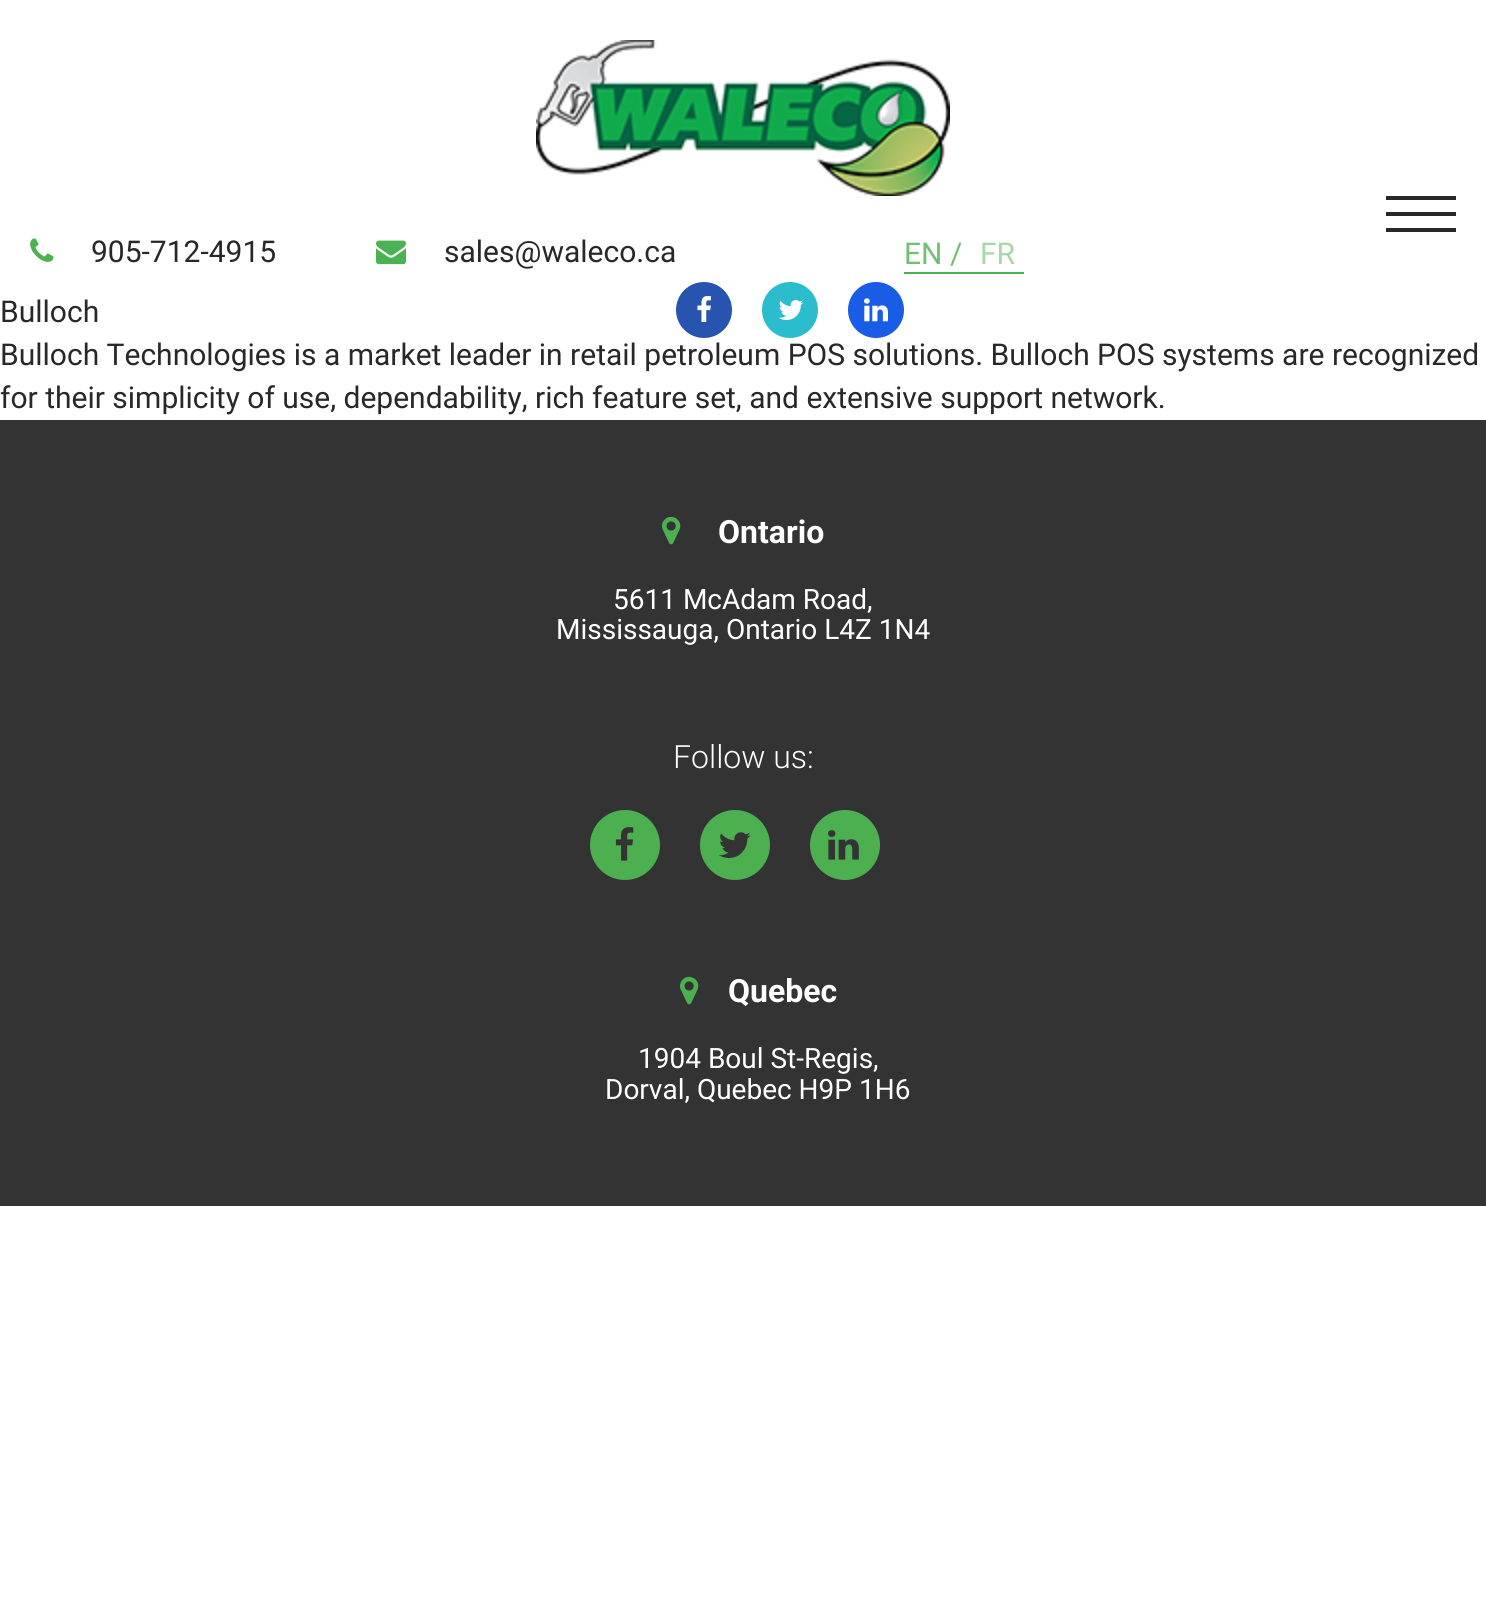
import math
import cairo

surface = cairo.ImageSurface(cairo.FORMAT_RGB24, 1486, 1600)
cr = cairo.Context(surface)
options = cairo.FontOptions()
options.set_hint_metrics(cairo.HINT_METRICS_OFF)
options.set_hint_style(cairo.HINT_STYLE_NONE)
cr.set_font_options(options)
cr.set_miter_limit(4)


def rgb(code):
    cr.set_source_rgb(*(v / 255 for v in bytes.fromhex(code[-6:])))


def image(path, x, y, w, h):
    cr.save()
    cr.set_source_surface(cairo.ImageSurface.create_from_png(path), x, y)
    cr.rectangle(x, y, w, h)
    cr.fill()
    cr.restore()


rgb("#ffffff")
cr.paint()
image("img/1.png", 536, 40, 414, 156)
for x, y, w, h, color in [
    (1386, 196, 70, 4, "#282828"),
    (1386, 212, 70, 4, "#282828"),
    (1386, 228, 70, 4, "#282828"),
]:
    rgb(color)
    cr.rectangle(x, y, w, h)
    cr.fill()
image("img/2.png", 30, 238, 24, 24)
image("img/3.png", 376, 240, 30, 25)
rgb("#4cb04f")
cr.rectangle(904, 272, 120, 2)
cr.fill()
rgb("#2754af")
cr.arc(704, 310, 28, 0, 2 * math.pi)
cr.fill()
image("img/4.png", 697, 296, 14, 26)
rgb("#2bbdce")
cr.arc(790, 310, 28, 0, 2 * math.pi)
cr.fill()
image("img/5.png", 778, 300, 26, 20)
rgb("#195de6")
cr.arc(876, 310, 28, 0, 2 * math.pi)
cr.fill()
image("img/6.png", 864, 298, 24, 24)
rgb("#333333")
cr.rectangle(0, 420, 1486, 786)
cr.fill()
image("img/7.png", 662, 516, 19, 29)
rgb("#4cb050")
cr.arc(625, 845, 35, 0, 2 * math.pi)
cr.fill()
image("img/8.png", 615, 827, 19, 34)
cr.arc(735, 845, 35, 0, 2 * math.pi)
cr.fill()
image("img/9.png", 719, 832, 32, 26)
cr.arc(845, 845, 35, 0, 2 * math.pi)
cr.fill()
image("img/10.png", 828, 830, 31, 30)
image("img/7.png", 680, 976, 19, 29)
cr.select_font_face("Roboto")
cr.set_font_size(30)
rgb("#282828")
cr.move_to(91, 262)
cr.show_text("905-712-4915")
cr.move_to(444, 262)
cr.show_text("sales@waleco.ca")
rgb("#70c073")
cr.move_to(904, 264)
cr.show_text("EN /")
rgb("#a6d8a8")
cr.move_to(980, 264)
cr.show_text("FR")
rgb("#282828")
for x, y, s in [
    (0, 322, "Bulloch"),
    (0, 365, "Bulloch Technologies is a market leader in retail petroleum POS solutions. Bulloch POS systems are recognized"),
    (0, 408, "for their simplicity of use, dependability, rich feature set, and extensive support network."),
]:
    cr.move_to(x, y)
    cr.show_text(s)
cr.select_font_face("Roboto", cairo.FONT_SLANT_NORMAL, cairo.FONT_WEIGHT_BOLD)
cr.set_font_size(32)
rgb("#ffffff")
cr.move_to(718, 543)
cr.show_text("Ontario")
cr.select_font_face("Roboto")
cr.set_font_size(28)
cr.move_to(613, 609)
cr.show_text("5611 McAdam Road,")
cr.move_to(556, 639)
cr.show_text("Mississauga, Ontario L4Z 1N4")
cr.select_font_face("Roboto Light")
cr.set_font_size(32)
cr.move_to(673, 768)
cr.show_text("Follow us:")
cr.select_font_face("Roboto", cairo.FONT_SLANT_NORMAL, cairo.FONT_WEIGHT_BOLD)
cr.move_to(728, 1002)
cr.show_text("Quebec")
cr.select_font_face("Roboto")
cr.set_font_size(28)
cr.move_to(638, 1068)
cr.show_text("1904 Boul St-Regis,")
cr.move_to(605, 1099)
cr.show_text("Dorval, Quebec H9P 1H6")
surface.write_to_png("page.png")
